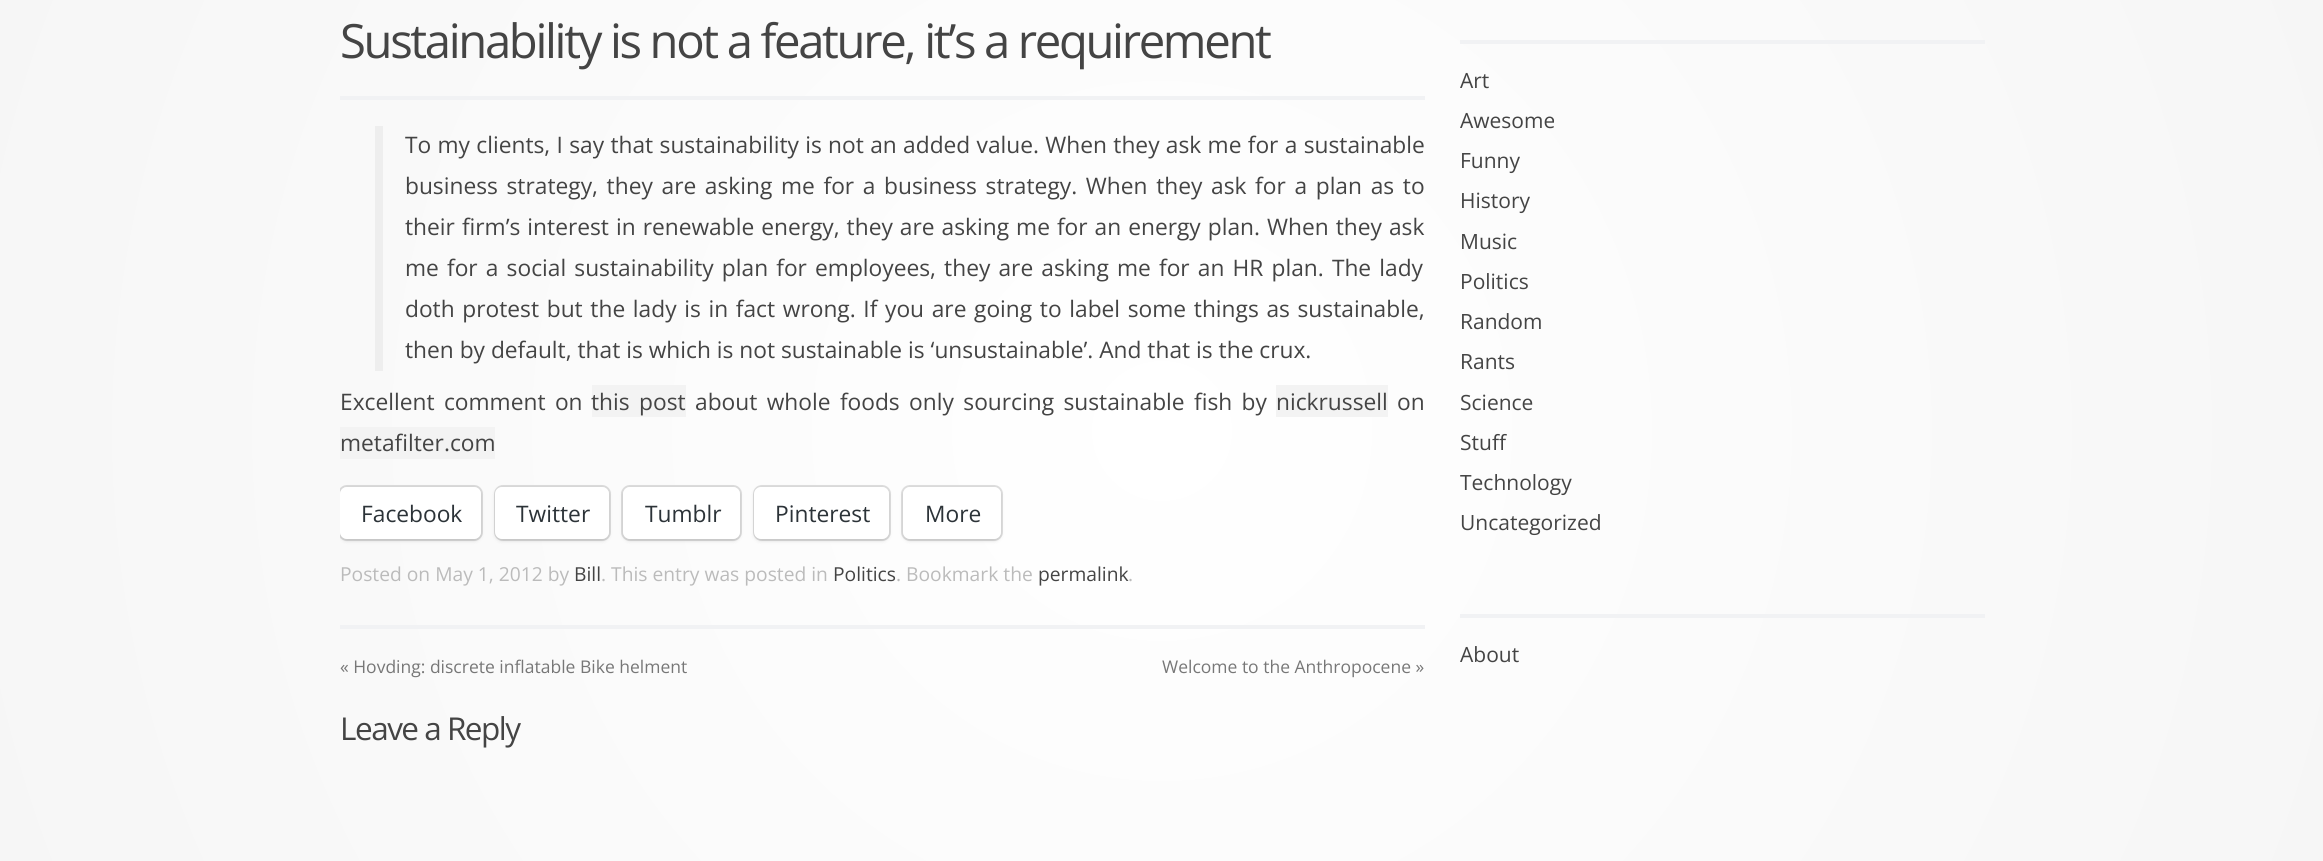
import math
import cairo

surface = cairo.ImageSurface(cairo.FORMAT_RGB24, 2323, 861)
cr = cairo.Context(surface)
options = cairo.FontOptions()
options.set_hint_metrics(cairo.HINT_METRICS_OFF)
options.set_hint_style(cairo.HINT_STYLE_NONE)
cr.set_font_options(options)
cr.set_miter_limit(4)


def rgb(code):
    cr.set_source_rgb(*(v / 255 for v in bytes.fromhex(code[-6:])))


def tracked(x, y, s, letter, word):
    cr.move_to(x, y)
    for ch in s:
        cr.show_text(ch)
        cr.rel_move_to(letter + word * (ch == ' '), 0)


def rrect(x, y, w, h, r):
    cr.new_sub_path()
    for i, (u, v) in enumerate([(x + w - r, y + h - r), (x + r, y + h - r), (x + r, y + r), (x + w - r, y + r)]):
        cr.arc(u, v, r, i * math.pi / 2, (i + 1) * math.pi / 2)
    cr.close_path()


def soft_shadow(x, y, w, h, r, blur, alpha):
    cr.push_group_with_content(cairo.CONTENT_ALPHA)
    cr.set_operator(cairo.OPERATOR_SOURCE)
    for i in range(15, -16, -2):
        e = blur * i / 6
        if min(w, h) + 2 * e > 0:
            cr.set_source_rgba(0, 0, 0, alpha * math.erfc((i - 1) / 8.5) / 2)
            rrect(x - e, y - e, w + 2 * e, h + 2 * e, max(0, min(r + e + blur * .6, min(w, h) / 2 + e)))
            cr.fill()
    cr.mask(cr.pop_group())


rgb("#ffffff")
cr.paint()
gradient = cairo.RadialGradient(1162, 431, 0, 1162, 431, 8674)
gradient.add_color_stop_rgba(0, 1, 1, 1, 1)
gradient.add_color_stop_rgba(1, 0.757, 0.757, 0.757, 1)
cr.set_source(gradient)
cr.rectangle(0, 0, 2323, 861)
cr.fill()
for x, y, w, h, color in [
    (340, 96, 1085, 4, "#f1f2f4"),
    (375, 126, 8, 245, "#eeeeee"),
    (592, 385, 94, 32, "#f3f3f3"),
    (1276, 385, 112, 32, "#f3f3f3"),
    (340, 427, 155, 32, "#f3f3f3"),
]:
    rgb(color)
    cr.rectangle(x, y, w, h)
    cr.fill()
cr.save()
cr.rectangle(340, 0, 1085, 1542)
cr.clip()
rrect(339, 486, 143, 54, 8)
rgb("#dbdbdb")
cr.stroke()
cr.restore()
cr.save()
cr.rectangle(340, 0, 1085, 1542)
cr.clip()
rgb("#000000")
soft_shadow(340, 488, 141, 53, 7, 2, 0.12)
cr.restore()
rgb("#ffffff")
rrect(340, 487, 141, 52, 7)
cr.fill()
rrect(495, 486, 115, 54, 8)
rgb("#dcdcdc")
cr.stroke()
rgb("#000000")
soft_shadow(495, 488, 114, 53, 7, 2, 0.12)
rgb("#ffffff")
rrect(495, 487, 114, 52, 7)
cr.fill()
rrect(622, 486, 119, 54, 8)
rgb("#dddddd")
cr.stroke()
rgb("#000000")
soft_shadow(623, 488, 117, 53, 7, 2, 0.12)
rgb("#ffffff")
rrect(623, 487, 117, 52, 7)
cr.fill()
rrect(754, 486, 136, 54, 8)
rgb("#dedede")
cr.stroke()
rgb("#000000")
soft_shadow(754, 488, 135, 53, 7, 2, 0.12)
rgb("#ffffff")
rrect(754, 487, 135, 52, 7)
cr.fill()
rrect(902, 486, 100, 54, 8)
rgb("#dfdfdf")
cr.stroke()
rgb("#000000")
soft_shadow(903, 488, 98, 53, 7, 2, 0.12)
rgb("#ffffff")
rrect(903, 487, 98, 52, 7)
cr.fill()
for x, y, w, h, color in [
    (340, 625, 1085, 4, "#f1f2f4"),
    (1460, 40, 525, 4, "#f1f2f4"),
    (1460, 614, 525, 4, "#f1f2f4"),
]:
    rgb(color)
    cr.rectangle(x, y, w, h)
    cr.fill()
cr.select_font_face("Open Sans")
cr.set_font_size(47.25)
rgb("#444444")
tracked(340, 58, "Sustainability is not a feature, it’s a requirement", -2.35, 0)
cr.set_font_size(22.75)
tracked(405, 153, "To my clients, I say that sustainability is not an added value. When they ask me for a sustainable", 0, 0.4)
tracked(405, 194, "business strategy, they are asking me for a business strategy. When they ask for a plan as to", 0, 2.75)
tracked(405, 235, "their firm’s interest in renewable energy, they are asking me for an energy plan. When they ask", 0, 1.1)
tracked(405, 276, "me for a social sustainability plan for employees, they are asking me for an HR plan. The lady", 0, 2.25)
tracked(405, 317, "doth protest but the lady is in fact wrong. If you are going to label some things as sustainable,", 0, 1.75)
cr.move_to(405, 358)
cr.show_text("then by default, that is which is not sustainable is ‘unsustainable’. And that is the crux.")
for x, y, s in [
    (340, 410, "Excellent comment on"),
    (591, 410, "this post"),
    (695, 410, "about whole foods only sourcing sustainable fish by"),
]:
    tracked(x, y, s, 0, 3.5)
for x, y, s in [
    (1276, 410, "nickrussell"),
    (1397, 410, "on"),
    (340, 451, "metafilter.com"),
]:
    cr.move_to(x, y)
    cr.show_text(s)
rgb("#2c3338")
for x, y, s in [
    (361, 522, "Facebook"),
    (516, 522, "Twitter"),
    (645, 522, "Tumblr"),
    (775, 522, "Pinterest"),
    (925, 522, "More"),
]:
    cr.move_to(x, y)
    cr.show_text(s)
cr.set_font_size(19.25)
rgb("#bbbbbb")
cr.move_to(340, 581)
cr.show_text("Posted on May 1, 2012 by")
rgb("#444444")
cr.move_to(574, 581)
cr.show_text("Bill")
rgb("#bbbbbb")
cr.move_to(601, 581)
cr.show_text(". This entry was posted in")
rgb("#444444")
cr.move_to(833, 581)
cr.show_text("Politics")
rgb("#bbbbbb")
cr.move_to(896, 581)
cr.show_text(". Bookmark the")
rgb("#444444")
cr.move_to(1038, 581)
cr.show_text("permalink")
rgb("#bbbbbb")
cr.move_to(1128, 581)
cr.show_text(".")
cr.set_font_size(17.5)
rgb("#777777")
cr.move_to(340, 673)
cr.show_text("« Hovding: discrete inflatable Bike helment")
cr.move_to(1162, 673)
cr.show_text("Welcome to the Anthropocene »")
cr.set_font_size(31.5)
rgb("#444444")
tracked(340, 740, "Leave a Reply", -1.5, 0)
cr.set_font_size(21)
for x, y, s in [
    (1460, 88, "Art"),
    (1460, 128, "Awesome"),
    (1460, 168, "Funny"),
    (1460, 208, "History"),
    (1460, 249, "Music"),
    (1460, 289, "Politics"),
    (1460, 329, "Random"),
    (1460, 369, "Rants"),
    (1460, 410, "Science"),
    (1460, 450, "Stuff"),
    (1460, 490, "Technology"),
    (1460, 530, "Uncategorized"),
    (1460, 662, "About"),
]:
    cr.move_to(x, y)
    cr.show_text(s)
surface.write_to_png("page.png")
